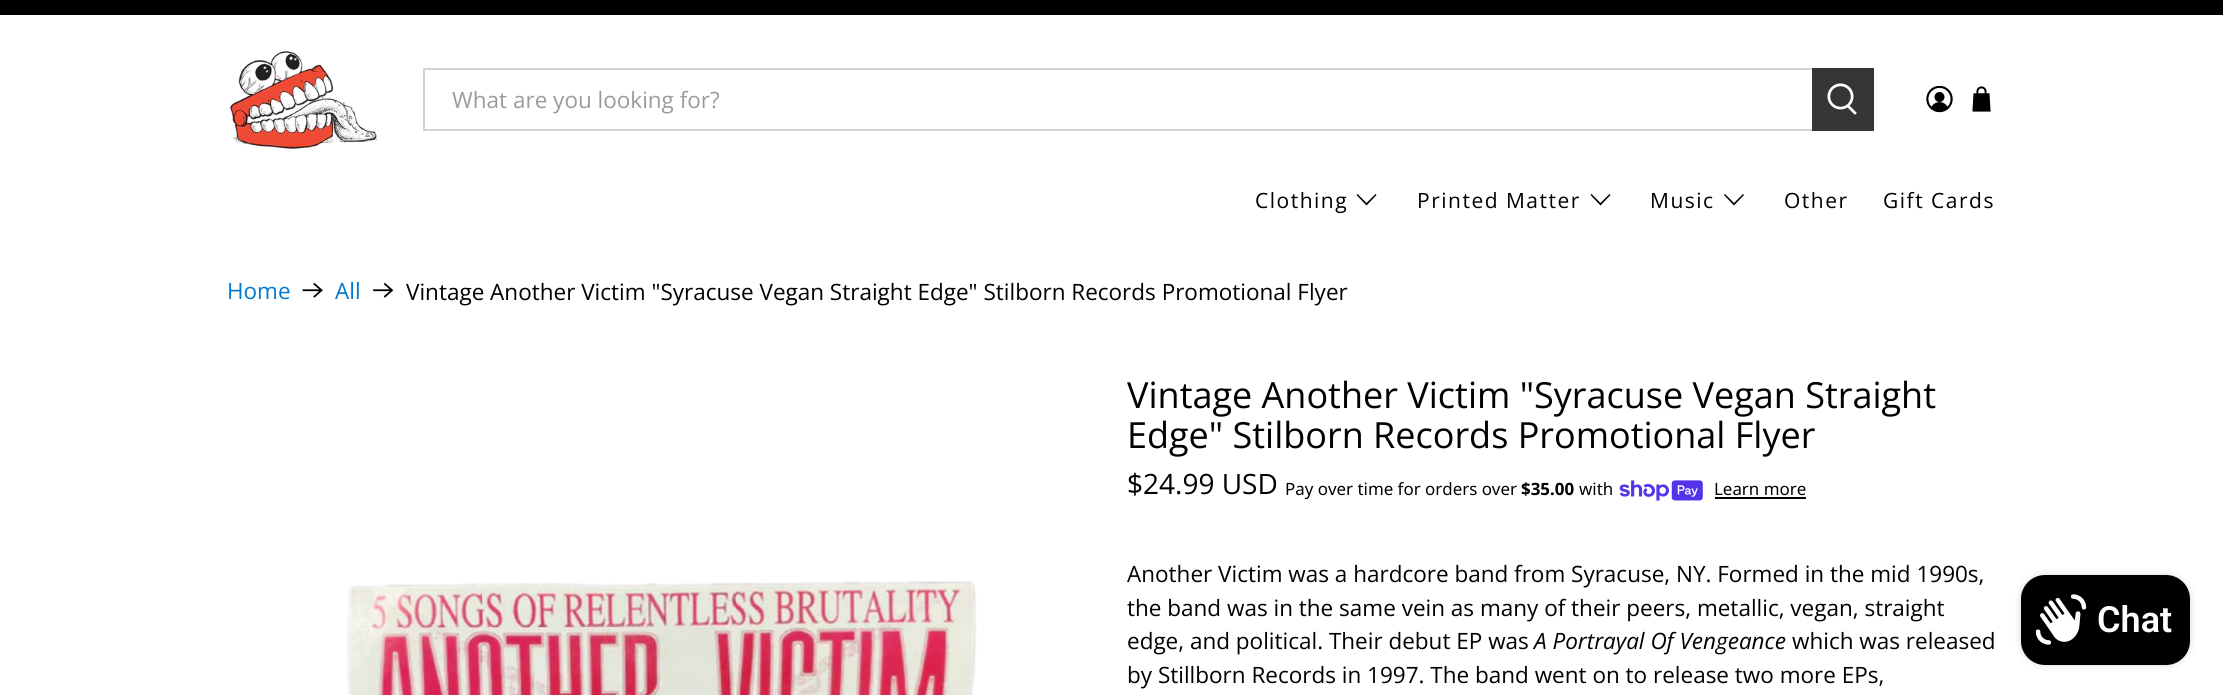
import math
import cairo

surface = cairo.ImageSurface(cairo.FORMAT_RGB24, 2223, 695)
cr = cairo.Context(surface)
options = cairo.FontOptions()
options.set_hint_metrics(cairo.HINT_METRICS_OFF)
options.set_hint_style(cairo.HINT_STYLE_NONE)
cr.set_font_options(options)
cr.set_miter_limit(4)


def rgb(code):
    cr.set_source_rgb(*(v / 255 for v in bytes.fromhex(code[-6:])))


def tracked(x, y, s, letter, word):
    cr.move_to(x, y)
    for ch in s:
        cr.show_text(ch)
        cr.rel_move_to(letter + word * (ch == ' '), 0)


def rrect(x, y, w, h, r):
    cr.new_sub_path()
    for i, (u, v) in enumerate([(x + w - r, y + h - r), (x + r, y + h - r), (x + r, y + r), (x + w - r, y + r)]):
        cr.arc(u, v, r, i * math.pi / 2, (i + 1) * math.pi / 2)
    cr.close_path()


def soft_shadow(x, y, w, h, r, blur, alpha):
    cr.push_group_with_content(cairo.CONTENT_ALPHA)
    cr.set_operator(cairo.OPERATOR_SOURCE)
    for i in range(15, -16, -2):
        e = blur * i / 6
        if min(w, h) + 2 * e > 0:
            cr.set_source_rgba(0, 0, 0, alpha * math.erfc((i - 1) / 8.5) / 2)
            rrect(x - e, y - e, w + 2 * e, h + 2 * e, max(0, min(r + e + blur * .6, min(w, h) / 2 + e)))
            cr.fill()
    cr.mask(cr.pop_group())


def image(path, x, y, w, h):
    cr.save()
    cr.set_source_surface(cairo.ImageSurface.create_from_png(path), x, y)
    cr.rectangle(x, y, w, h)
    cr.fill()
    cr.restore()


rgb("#ffffff")
cr.paint()
rgb("#000000")
cr.rectangle(0, 0, 2223, 15)
cr.fill()
image("img/1.png", 230, 51, 148, 98)
cr.rectangle(424, 69, 1389, 61)
rgb("#d3d3d3")
cr.stroke()
rgb("#363636")
cr.rectangle(1812, 68, 62, 63)
cr.fill()
image("img/2.png", 1827, 83, 30, 32)
image("img/3.png", 1926, 86, 27, 27)
image("img/4.png", 1972, 86, 19, 26)
rgb("#000000")
cr.new_path()
cr.move_to(1366.5, 205.5)
cr.line_to(1356.5, 195)
cr.line_to(1357.5, 194)
cr.line_to(1366.5, 203)
cr.line_to(1375.5, 194)
cr.line_to(1376.5, 195)
cr.close_path()
cr.fill()
cr.new_path()
cr.move_to(1600.5, 205.5)
cr.line_to(1590.5, 195)
cr.line_to(1591.5, 194)
cr.line_to(1600.5, 203)
cr.line_to(1609.5, 194)
cr.line_to(1610.5, 195)
cr.close_path()
cr.fill()
cr.new_path()
cr.move_to(1734, 205.5)
cr.line_to(1724, 195)
cr.line_to(1725, 194)
cr.line_to(1734, 203)
cr.line_to(1743, 194)
cr.line_to(1744, 195)
cr.close_path()
cr.fill()
image("img/5.png", 302, 282, 21, 16)
image("img/6.png", 373, 282, 21, 16)
image("img/7.png", 347, 581, 630, 114)
image("img/8.png", 1619, 480, 84, 21)
cr.rectangle(1715, 497, 91, 2)
cr.fill()
rgb("#000000")
soft_shadow(2021, 575, 169, 90, 24, 4, 0.15)
rgb("#000000")
rrect(2021, 575, 169, 90, 24)
cr.fill()
image("img/9.png", 2035, 594, 52, 51)
cr.select_font_face("Open Sans")
cr.set_font_size(22.5)
rgb("#9b9b9b")
cr.move_to(452, 108)
cr.show_text("What are you looking for?")
cr.set_font_size(21)
rgb("#000000")
for x, y, s in [
    (1255, 208, "Clothing"),
    (1417, 208, "Printed Matter"),
    (1650, 208, "Music"),
    (1784, 208, "Other"),
    (1883, 208, "Gift Cards"),
]:
    tracked(x, y, s, 1.5, 0)
cr.set_font_size(22.5)
rgb("#007ace")
cr.move_to(227, 299)
cr.show_text("Home")
cr.move_to(335, 299)
cr.show_text("All")
rgb("#000000")
cr.move_to(406, 300)
cr.show_text("Vintage Another Victim \"Syracuse Vegan Straight Edge\" Stilborn Records Promotional Flyer")
cr.set_font_size(36)
cr.move_to(1127, 408)
cr.show_text("Vintage Another Victim \"Syracuse Vegan Straight")
cr.move_to(1127, 448)
cr.show_text("Edge\" Stilborn Records Promotional Flyer")
cr.set_font_size(28)
cr.move_to(1127, 494)
cr.show_text("$24.99 USD")
cr.select_font_face("Noto Sans")
cr.set_font_size(16.9)
cr.move_to(1285, 495)
cr.show_text("Pay over time for orders over")
cr.select_font_face("Noto Sans", cairo.FONT_SLANT_NORMAL, cairo.FONT_WEIGHT_BOLD)
cr.move_to(1521, 495)
cr.show_text("$35.00")
cr.select_font_face("Noto Sans")
cr.move_to(1579, 495)
cr.show_text("with")
cr.move_to(1714, 495)
cr.show_text("Learn more")
cr.select_font_face("Open Sans")
cr.set_font_size(22.5)
for x, y, s in [
    (1127, 582, "Another Victim was a hardcore band from Syracuse, NY. Formed in the mid 1990s,"),
    (1127, 616, "the band was in the same vein as many of their peers, metallic, vegan, straight"),
    (1127, 649, "edge, and political. Their debut EP was"),
]:
    cr.move_to(x, y)
    cr.show_text(s)
cr.select_font_face("Open Sans", cairo.FONT_SLANT_ITALIC)
cr.move_to(1534, 649)
cr.show_text("A Portrayal Of Vengeance")
cr.select_font_face("Open Sans")
cr.move_to(1792, 649)
cr.show_text("which was released")
cr.move_to(1127, 683)
cr.show_text("by Stillborn Records in 1997. The band went on to release two more EPs,")
cr.select_font_face("Roboto SemiBold")
cr.set_font_size(36)
rgb("#ffffff")
cr.move_to(2097, 632)
cr.show_text("Chat")
surface.write_to_png("page.png")
